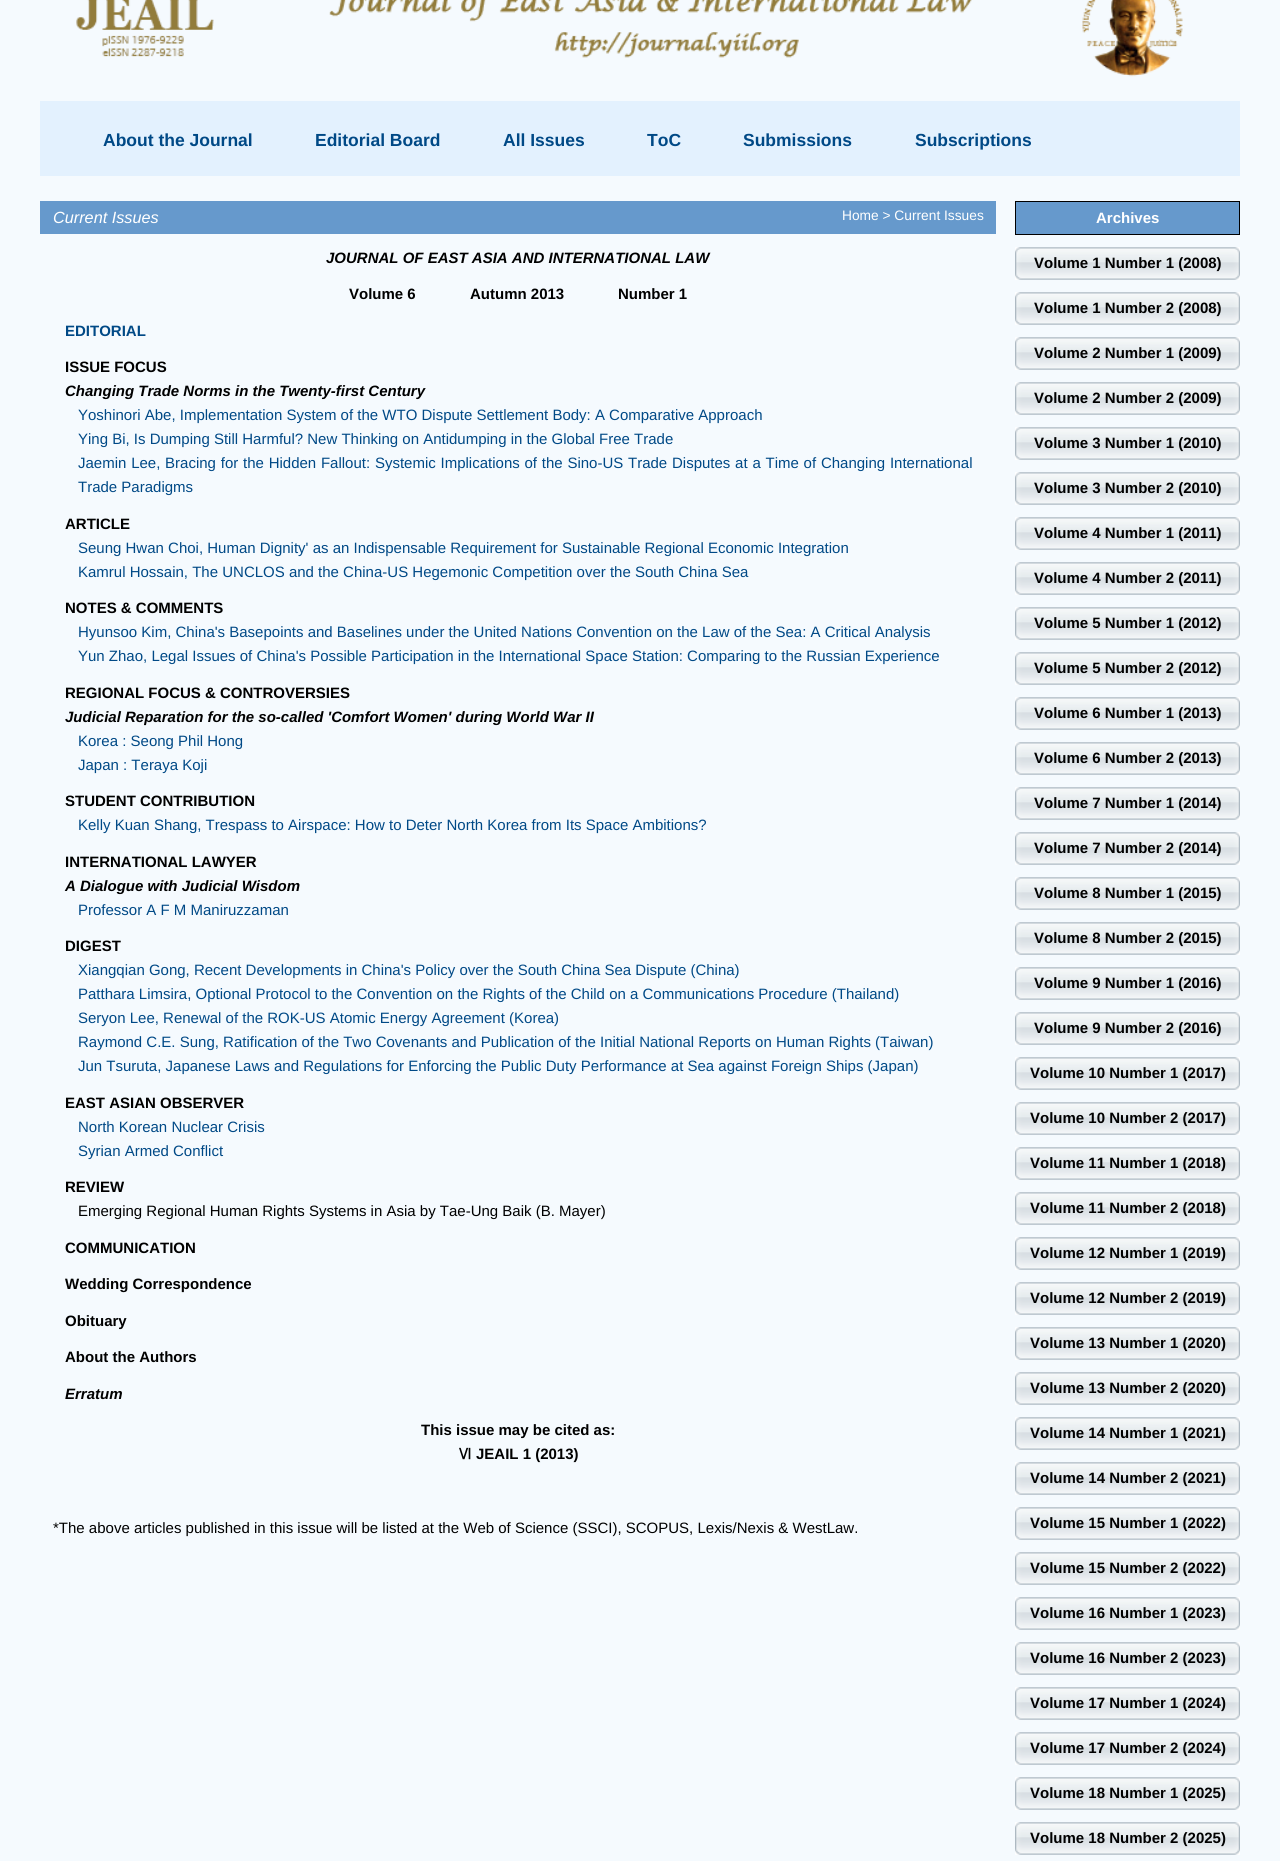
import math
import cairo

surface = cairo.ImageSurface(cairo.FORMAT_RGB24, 1280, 1861)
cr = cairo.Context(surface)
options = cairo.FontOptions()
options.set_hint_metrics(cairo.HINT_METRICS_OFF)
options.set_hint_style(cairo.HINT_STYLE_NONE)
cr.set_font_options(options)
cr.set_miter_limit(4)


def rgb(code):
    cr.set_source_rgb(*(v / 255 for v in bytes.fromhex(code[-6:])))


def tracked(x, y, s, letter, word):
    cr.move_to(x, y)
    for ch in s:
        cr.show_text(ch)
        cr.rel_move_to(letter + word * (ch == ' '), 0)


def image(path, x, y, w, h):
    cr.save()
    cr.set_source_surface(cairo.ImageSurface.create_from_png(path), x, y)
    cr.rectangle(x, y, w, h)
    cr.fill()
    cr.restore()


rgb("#f5fafe")
cr.paint()
image("img/1.png", 329, 0, 643, 58)
image("img/2.png", 76, 0, 138, 57)
image("img/3.png", 1082, 0, 101, 77)
rgb("#e3f1fe")
cr.rectangle(40, 101, 1200, 75)
cr.fill()
rgb("#6699cc")
cr.rectangle(40, 201, 956, 33)
cr.fill()
cr.rectangle(1015.5, 201.5, 224, 33)
cr.fill_preserve()
rgb("#000000")
cr.set_line_width(1)
cr.stroke()
image("img/4.png", 1015, 247, 225, 33)
image("img/4.png", 1015, 292, 225, 33)
image("img/4.png", 1015, 337, 225, 33)
image("img/4.png", 1015, 382, 225, 33)
image("img/4.png", 1015, 427, 225, 33)
image("img/4.png", 1015, 472, 225, 33)
image("img/5.png", 1015, 517, 225, 33)
image("img/4.png", 1015, 562, 225, 33)
image("img/4.png", 1015, 607, 225, 33)
image("img/4.png", 1015, 652, 225, 33)
image("img/4.png", 1015, 697, 225, 33)
image("img/4.png", 1015, 742, 225, 33)
image("img/4.png", 1015, 787, 225, 33)
image("img/4.png", 1015, 832, 225, 33)
image("img/4.png", 1015, 877, 225, 33)
image("img/4.png", 1015, 922, 225, 33)
image("img/4.png", 1015, 967, 225, 33)
image("img/4.png", 1015, 1012, 225, 33)
image("img/4.png", 1015, 1057, 225, 33)
image("img/5.png", 1015, 1102, 225, 33)
image("img/4.png", 1015, 1147, 225, 33)
image("img/4.png", 1015, 1192, 225, 33)
image("img/4.png", 1015, 1237, 225, 33)
image("img/4.png", 1015, 1282, 225, 33)
image("img/4.png", 1015, 1327, 225, 33)
image("img/4.png", 1015, 1372, 225, 33)
image("img/4.png", 1015, 1417, 225, 33)
image("img/4.png", 1015, 1462, 225, 33)
image("img/6.png", 1015, 1507, 225, 33)
image("img/4.png", 1015, 1552, 225, 33)
image("img/4.png", 1015, 1597, 225, 33)
image("img/4.png", 1015, 1642, 225, 33)
image("img/4.png", 1015, 1687, 225, 33)
image("img/4.png", 1015, 1732, 225, 33)
image("img/4.png", 1015, 1777, 225, 33)
image("img/4.png", 1015, 1822, 225, 33)
cr.select_font_face("Liberation Sans", cairo.FONT_SLANT_NORMAL, cairo.FONT_WEIGHT_BOLD)
cr.set_font_size(17.5)
rgb("#004986")
for x, y, s in [
    (103, 146, "About the Journal"),
    (315, 146, "Editorial Board"),
    (503, 146, "All Issues"),
    (647, 146, "ToC"),
    (743, 146, "Submissions"),
    (915, 146, "Subscriptions"),
]:
    cr.move_to(x, y)
    cr.show_text(s)
cr.select_font_face("Liberation Sans", cairo.FONT_SLANT_ITALIC)
cr.set_font_size(16.25)
rgb("#ffffff")
cr.move_to(53, 223)
cr.show_text("Current Issues")
cr.select_font_face("Liberation Sans")
cr.set_font_size(13.75)
cr.move_to(842, 220)
cr.show_text("Home > Current Issues")
cr.select_font_face("Liberation Sans", cairo.FONT_SLANT_ITALIC, cairo.FONT_WEIGHT_BOLD)
cr.set_font_size(15)
rgb("#000000")
cr.move_to(326, 263)
cr.show_text("JOURNAL OF EAST ASIA AND INTERNATIONAL LAW")
cr.select_font_face("Liberation Sans", cairo.FONT_SLANT_NORMAL, cairo.FONT_WEIGHT_BOLD)
for x, y, s in [
    (349, 299, "Volume 6"),
    (470, 299, "Autumn 2013"),
    (618, 299, "Number 1"),
]:
    cr.move_to(x, y)
    cr.show_text(s)
rgb("#004986")
cr.move_to(65, 336)
cr.show_text("EDITORIAL")
rgb("#000000")
cr.move_to(65, 372)
cr.show_text("ISSUE FOCUS")
cr.select_font_face("Liberation Sans", cairo.FONT_SLANT_ITALIC, cairo.FONT_WEIGHT_BOLD)
cr.move_to(65, 396)
cr.show_text("Changing Trade Norms in the Twenty-first Century")
cr.select_font_face("Liberation Sans")
rgb("#004986")
cr.move_to(78, 420)
cr.show_text("Yoshinori Abe, Implementation System of the WTO Dispute Settlement Body: A Comparative Approach")
cr.move_to(78, 444)
cr.show_text("Ying Bi, Is Dumping Still Harmful? New Thinking on Antidumping in the Global Free Trade")
tracked(78, 468, "Jaemin Lee, Bracing for the Hidden Fallout: Systemic Implications of the Sino-US Trade Disputes at a Time of Changing International", 0, 0.6)
cr.move_to(78, 492)
cr.show_text("Trade Paradigms")
cr.select_font_face("Liberation Sans", cairo.FONT_SLANT_NORMAL, cairo.FONT_WEIGHT_BOLD)
rgb("#000000")
cr.move_to(65, 529)
cr.show_text("ARTICLE")
cr.select_font_face("Liberation Sans")
rgb("#004986")
cr.move_to(78, 553)
cr.show_text("Seung Hwan Choi, Human Dignity' as an Indispensable Requirement for Sustainable Regional Economic Integration")
cr.move_to(78, 577)
cr.show_text("Kamrul Hossain, The UNCLOS and the China-US Hegemonic Competition over the South China Sea")
cr.select_font_face("Liberation Sans", cairo.FONT_SLANT_NORMAL, cairo.FONT_WEIGHT_BOLD)
rgb("#000000")
cr.move_to(65, 613)
cr.show_text("NOTES & COMMENTS")
cr.select_font_face("Liberation Sans")
rgb("#004986")
cr.move_to(78, 637)
cr.show_text("Hyunsoo Kim, China's Basepoints and Baselines under the United Nations Convention on the Law of the Sea: A Critical Analysis")
cr.move_to(78, 661)
cr.show_text("Yun Zhao, Legal Issues of China's Possible Participation in the International Space Station: Comparing to the Russian Experience")
cr.select_font_face("Liberation Sans", cairo.FONT_SLANT_NORMAL, cairo.FONT_WEIGHT_BOLD)
rgb("#000000")
cr.move_to(65, 698)
cr.show_text("REGIONAL FOCUS & CONTROVERSIES")
cr.select_font_face("Liberation Sans", cairo.FONT_SLANT_ITALIC, cairo.FONT_WEIGHT_BOLD)
cr.move_to(65, 722)
cr.show_text("Judicial Reparation for the so-called 'Comfort Women' during World War II")
cr.select_font_face("Liberation Sans")
rgb("#004986")
cr.move_to(78, 746)
cr.show_text("Korea : Seong Phil Hong")
cr.move_to(78, 770)
cr.show_text("Japan : Teraya Koji")
cr.select_font_face("Liberation Sans", cairo.FONT_SLANT_NORMAL, cairo.FONT_WEIGHT_BOLD)
rgb("#000000")
cr.move_to(65, 806)
cr.show_text("STUDENT CONTRIBUTION")
cr.select_font_face("Liberation Sans")
rgb("#004986")
cr.move_to(78, 830)
cr.show_text("Kelly Kuan Shang, Trespass to Airspace: How to Deter North Korea from Its Space Ambitions?")
cr.select_font_face("Liberation Sans", cairo.FONT_SLANT_NORMAL, cairo.FONT_WEIGHT_BOLD)
rgb("#000000")
cr.move_to(65, 867)
cr.show_text("INTERNATIONAL LAWYER")
cr.select_font_face("Liberation Sans", cairo.FONT_SLANT_ITALIC, cairo.FONT_WEIGHT_BOLD)
cr.move_to(65, 891)
cr.show_text("A Dialogue with Judicial Wisdom")
cr.select_font_face("Liberation Sans")
rgb("#004986")
cr.move_to(78, 915)
cr.show_text("Professor A F M Maniruzzaman")
cr.select_font_face("Liberation Sans", cairo.FONT_SLANT_NORMAL, cairo.FONT_WEIGHT_BOLD)
rgb("#000000")
cr.move_to(65, 951)
cr.show_text("DIGEST")
cr.select_font_face("Liberation Sans")
rgb("#004986")
for x, y, s in [
    (78, 975, "Xiangqian Gong, Recent Developments in China's Policy over the South China Sea Dispute (China)"),
    (78, 999, "Patthara Limsira, Optional Protocol to the Convention on the Rights of the Child on a Communications Procedure (Thailand)"),
    (78, 1023, "Seryon Lee, Renewal of the ROK-US Atomic Energy Agreement (Korea)"),
    (78, 1047, "Raymond C.E. Sung, Ratification of the Two Covenants and Publication of the Initial National Reports on Human Rights (Taiwan)"),
    (78, 1071, "Jun Tsuruta, Japanese Laws and Regulations for Enforcing the Public Duty Performance at Sea against Foreign Ships (Japan)"),
]:
    cr.move_to(x, y)
    cr.show_text(s)
cr.select_font_face("Liberation Sans", cairo.FONT_SLANT_NORMAL, cairo.FONT_WEIGHT_BOLD)
rgb("#000000")
cr.move_to(65, 1108)
cr.show_text("EAST ASIAN OBSERVER")
cr.select_font_face("Liberation Sans")
rgb("#004986")
cr.move_to(78, 1132)
cr.show_text("North Korean Nuclear Crisis")
cr.move_to(78, 1156)
cr.show_text("Syrian Armed Conflict")
cr.select_font_face("Liberation Sans", cairo.FONT_SLANT_NORMAL, cairo.FONT_WEIGHT_BOLD)
rgb("#000000")
cr.move_to(65, 1192)
cr.show_text("REVIEW")
cr.select_font_face("Liberation Sans")
cr.move_to(78, 1216)
cr.show_text("Emerging Regional Human Rights Systems in Asia by Tae-Ung Baik (B. Mayer)")
cr.select_font_face("Liberation Sans", cairo.FONT_SLANT_NORMAL, cairo.FONT_WEIGHT_BOLD)
for x, y, s in [
    (65, 1253, "COMMUNICATION"),
    (65, 1289, "Wedding Correspondence"),
    (65, 1326, "Obituary"),
    (65, 1362, "About the Authors"),
]:
    cr.move_to(x, y)
    cr.show_text(s)
cr.select_font_face("Liberation Sans", cairo.FONT_SLANT_ITALIC, cairo.FONT_WEIGHT_BOLD)
cr.move_to(65, 1399)
cr.show_text("Erratum")
cr.select_font_face("Liberation Sans", cairo.FONT_SLANT_NORMAL, cairo.FONT_WEIGHT_BOLD)
cr.move_to(421, 1435)
cr.show_text("This issue may be cited as:")
cr.select_font_face("WenQuanYi Zen Hei", cairo.FONT_SLANT_NORMAL, cairo.FONT_WEIGHT_BOLD)
cr.move_to(457, 1459)
cr.show_text("Ⅵ")
cr.select_font_face("Liberation Sans", cairo.FONT_SLANT_NORMAL, cairo.FONT_WEIGHT_BOLD)
cr.move_to(476, 1459)
cr.show_text("JEAIL 1 (2013)")
cr.select_font_face("Liberation Sans")
cr.move_to(53, 1533)
cr.show_text("*The above articles published in this issue will be listed at the Web of Science (SSCI), SCOPUS, Lexis/Nexis & WestLaw.")
cr.select_font_face("Liberation Sans", cairo.FONT_SLANT_NORMAL, cairo.FONT_WEIGHT_BOLD)
rgb("#ffffff")
cr.move_to(1096, 223)
cr.show_text("Archives")
rgb("#000000")
for x, y, s in [
    (1034, 268, "Volume 1 Number 1 (2008)"),
    (1034, 313, "Volume 1 Number 2 (2008)"),
    (1034, 358, "Volume 2 Number 1 (2009)"),
    (1034, 403, "Volume 2 Number 2 (2009)"),
    (1034, 448, "Volume 3 Number 1 (2010)"),
    (1034, 493, "Volume 3 Number 2 (2010)"),
    (1034, 538, "Volume 4 Number 1 (2011)"),
    (1034, 583, "Volume 4 Number 2 (2011)"),
    (1034, 628, "Volume 5 Number 1 (2012)"),
    (1034, 673, "Volume 5 Number 2 (2012)"),
    (1034, 718, "Volume 6 Number 1 (2013)"),
    (1034, 763, "Volume 6 Number 2 (2013)"),
    (1034, 808, "Volume 7 Number 1 (2014)"),
    (1034, 853, "Volume 7 Number 2 (2014)"),
    (1034, 898, "Volume 8 Number 1 (2015)"),
    (1034, 943, "Volume 8 Number 2 (2015)"),
    (1034, 988, "Volume 9 Number 1 (2016)"),
    (1034, 1033, "Volume 9 Number 2 (2016)"),
    (1030, 1078, "Volume 10 Number 1 (2017)"),
    (1030, 1123, "Volume 10 Number 2 (2017)"),
    (1030, 1168, "Volume 11 Number 1 (2018)"),
    (1030, 1213, "Volume 11 Number 2 (2018)"),
    (1030, 1258, "Volume 12 Number 1 (2019)"),
    (1030, 1303, "Volume 12 Number 2 (2019)"),
    (1030, 1348, "Volume 13 Number 1 (2020)"),
    (1030, 1393, "Volume 13 Number 2 (2020)"),
    (1030, 1438, "Volume 14 Number 1 (2021)"),
    (1030, 1483, "Volume 14 Number 2 (2021)"),
    (1030, 1528, "Volume 15 Number 1 (2022)"),
    (1030, 1573, "Volume 15 Number 2 (2022)"),
    (1030, 1618, "Volume 16 Number 1 (2023)"),
    (1030, 1663, "Volume 16 Number 2 (2023)"),
    (1030, 1708, "Volume 17 Number 1 (2024)"),
    (1030, 1753, "Volume 17 Number 2 (2024)"),
    (1030, 1798, "Volume 18 Number 1 (2025)"),
    (1030, 1843, "Volume 18 Number 2 (2025)"),
]:
    cr.move_to(x, y)
    cr.show_text(s)
surface.write_to_png("page.png")
